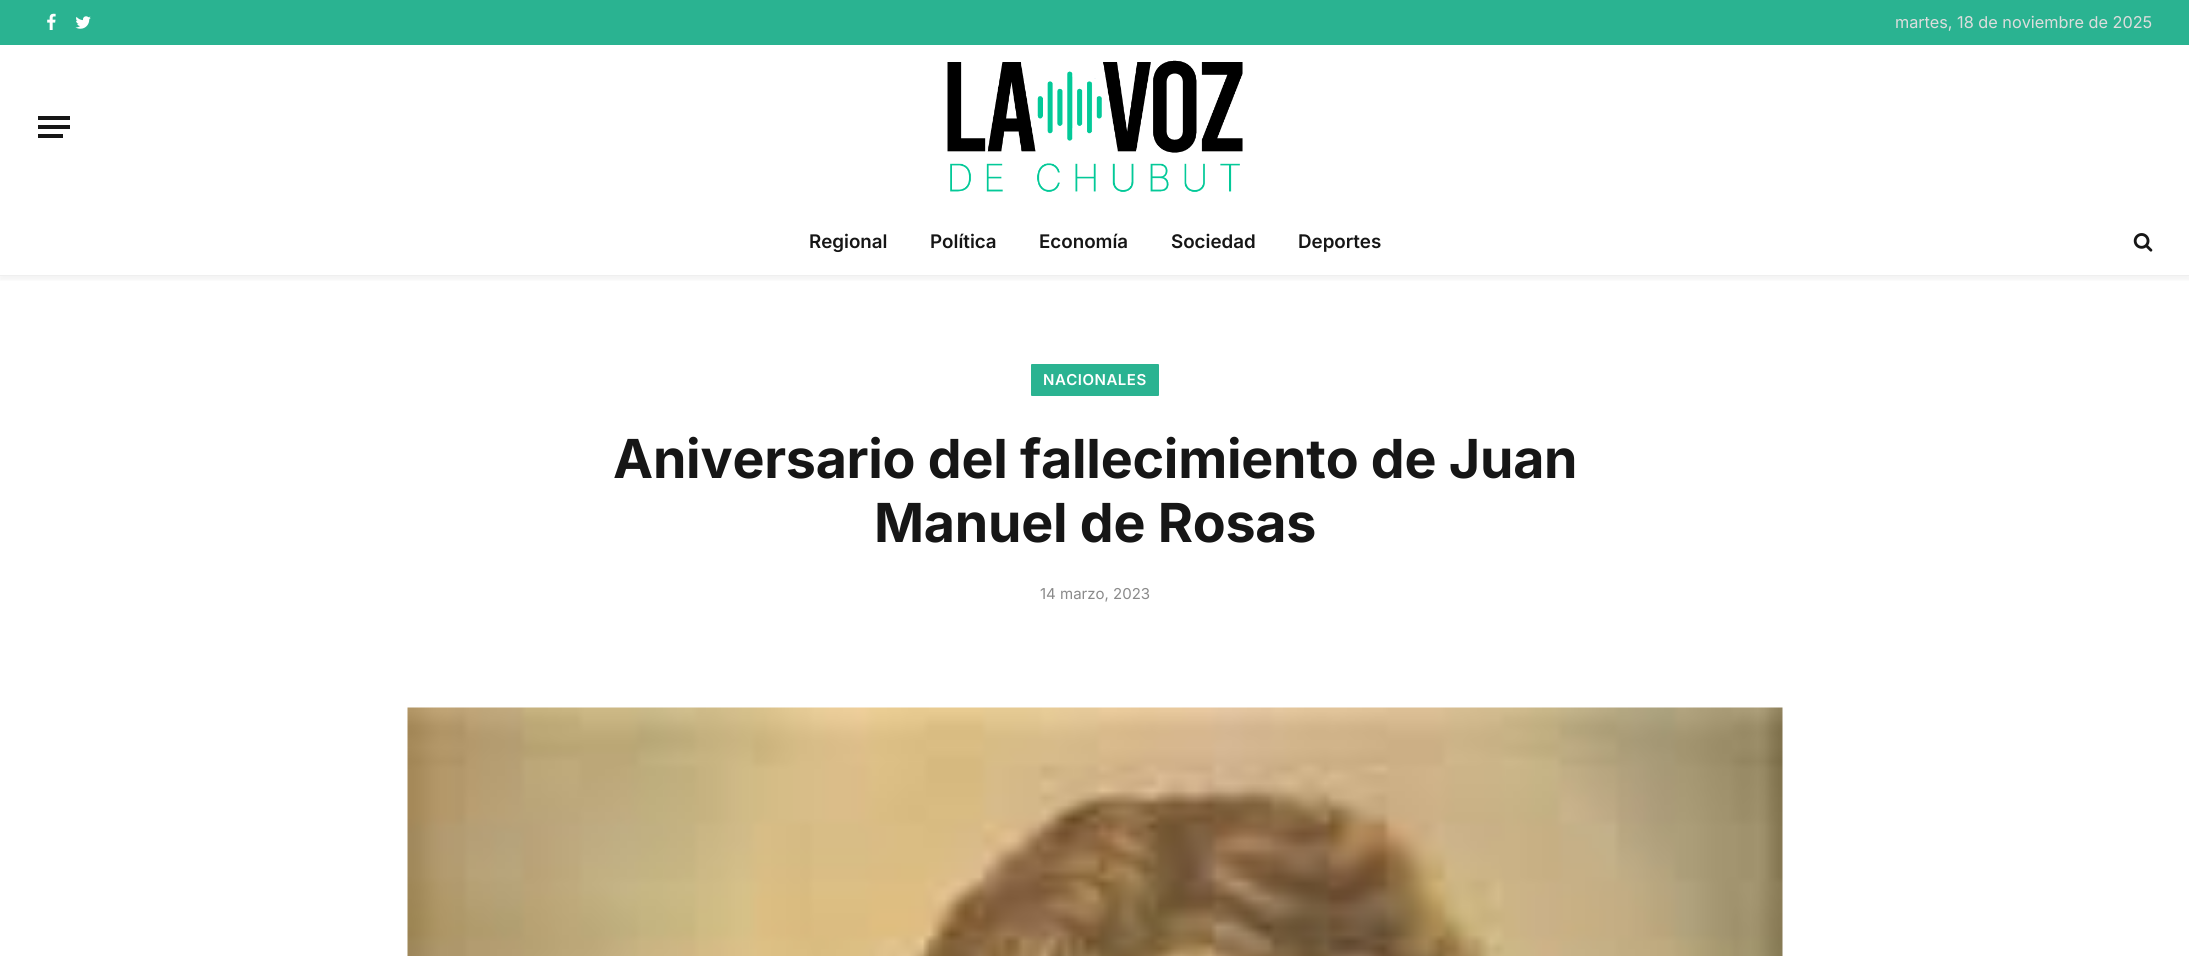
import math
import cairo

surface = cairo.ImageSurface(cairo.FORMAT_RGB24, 2189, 956)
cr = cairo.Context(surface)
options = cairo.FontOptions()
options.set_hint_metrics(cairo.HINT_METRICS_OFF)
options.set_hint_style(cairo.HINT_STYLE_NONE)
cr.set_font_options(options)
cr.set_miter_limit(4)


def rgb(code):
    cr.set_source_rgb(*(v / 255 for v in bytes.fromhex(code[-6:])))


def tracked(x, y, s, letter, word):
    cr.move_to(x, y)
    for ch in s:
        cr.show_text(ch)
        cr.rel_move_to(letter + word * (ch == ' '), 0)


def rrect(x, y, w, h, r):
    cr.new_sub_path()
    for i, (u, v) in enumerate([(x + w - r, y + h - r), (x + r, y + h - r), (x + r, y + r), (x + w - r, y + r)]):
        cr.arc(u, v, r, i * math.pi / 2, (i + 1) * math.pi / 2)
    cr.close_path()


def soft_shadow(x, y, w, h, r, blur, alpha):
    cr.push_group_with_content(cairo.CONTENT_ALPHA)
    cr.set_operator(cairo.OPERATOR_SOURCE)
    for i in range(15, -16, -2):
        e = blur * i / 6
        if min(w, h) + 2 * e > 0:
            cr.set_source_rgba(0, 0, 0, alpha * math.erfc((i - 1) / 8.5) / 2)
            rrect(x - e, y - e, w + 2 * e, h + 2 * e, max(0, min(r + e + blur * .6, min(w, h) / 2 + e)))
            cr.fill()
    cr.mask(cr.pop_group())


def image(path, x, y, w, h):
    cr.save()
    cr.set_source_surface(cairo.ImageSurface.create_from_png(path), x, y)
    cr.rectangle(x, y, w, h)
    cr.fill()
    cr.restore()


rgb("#ffffff")
cr.paint()
cr.save()
cr.rectangle(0, 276, 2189, 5)
cr.clip()
rgb("#000000")
soft_shadow(0, 4, 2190, 276, 0, 2.5, 0.05)
cr.restore()
rgb("#2ab391")
cr.rectangle(0, 0, 2189, 45)
cr.fill()
image("img/1.png", 47, 13, 9, 17)
image("img/2.png", 75, 16, 16, 13)
for x, y, w, h, color in [
    (38, 134, 25, 4, "#161616"),
    (38, 116, 32, 4, "#161616"),
    (38, 125, 32, 4, "#161616"),
]:
    rgb(color)
    cr.rectangle(x, y, w, h)
    cr.fill()
image("img/3.png", 947, 60, 296, 132)
rgb("#efefef")
cr.rectangle(0, 275, 2189, 1)
cr.fill()
image("img/4.png", 2133, 233, 20, 19)
rgb("#2ab391")
rrect(1031, 364, 128, 32, 1)
cr.fill()
image("img/5.png", 407, 707, 1376, 249)
cr.select_font_face("Inter")
cr.set_font_size(16.25)
rgb("#dddddd")
cr.move_to(1895, 28)
cr.show_text("martes, 18 de noviembre de 2025")
cr.select_font_face("Inter SemiBold")
cr.set_font_size(18.75)
rgb("#161616")
for x, y, s in [
    (809, 248, "Regional"),
    (930, 248, "Política"),
    (1039, 248, "Economía"),
    (1171, 248, "Sociedad"),
    (1298, 248, "Deportes"),
]:
    cr.move_to(x, y)
    cr.show_text(s)
cr.set_font_size(15)
rgb("#ffffff")
tracked(1043, 385, "NACIONALES", 0.5, 0)
cr.select_font_face("Inter", cairo.FONT_SLANT_NORMAL, cairo.FONT_WEIGHT_BOLD)
cr.set_font_size(53.75)
rgb("#161616")
tracked(613, 478, "Aniversario del fallecimiento de Juan", -0.25, 0)
tracked(874, 542, "Manuel de Rosas", -0.25, 0)
cr.select_font_face("Inter")
cr.set_font_size(15)
rgb("#8a8a8a")
cr.move_to(1040, 599)
cr.show_text("14 marzo, 2023")
surface.write_to_png("page.png")
